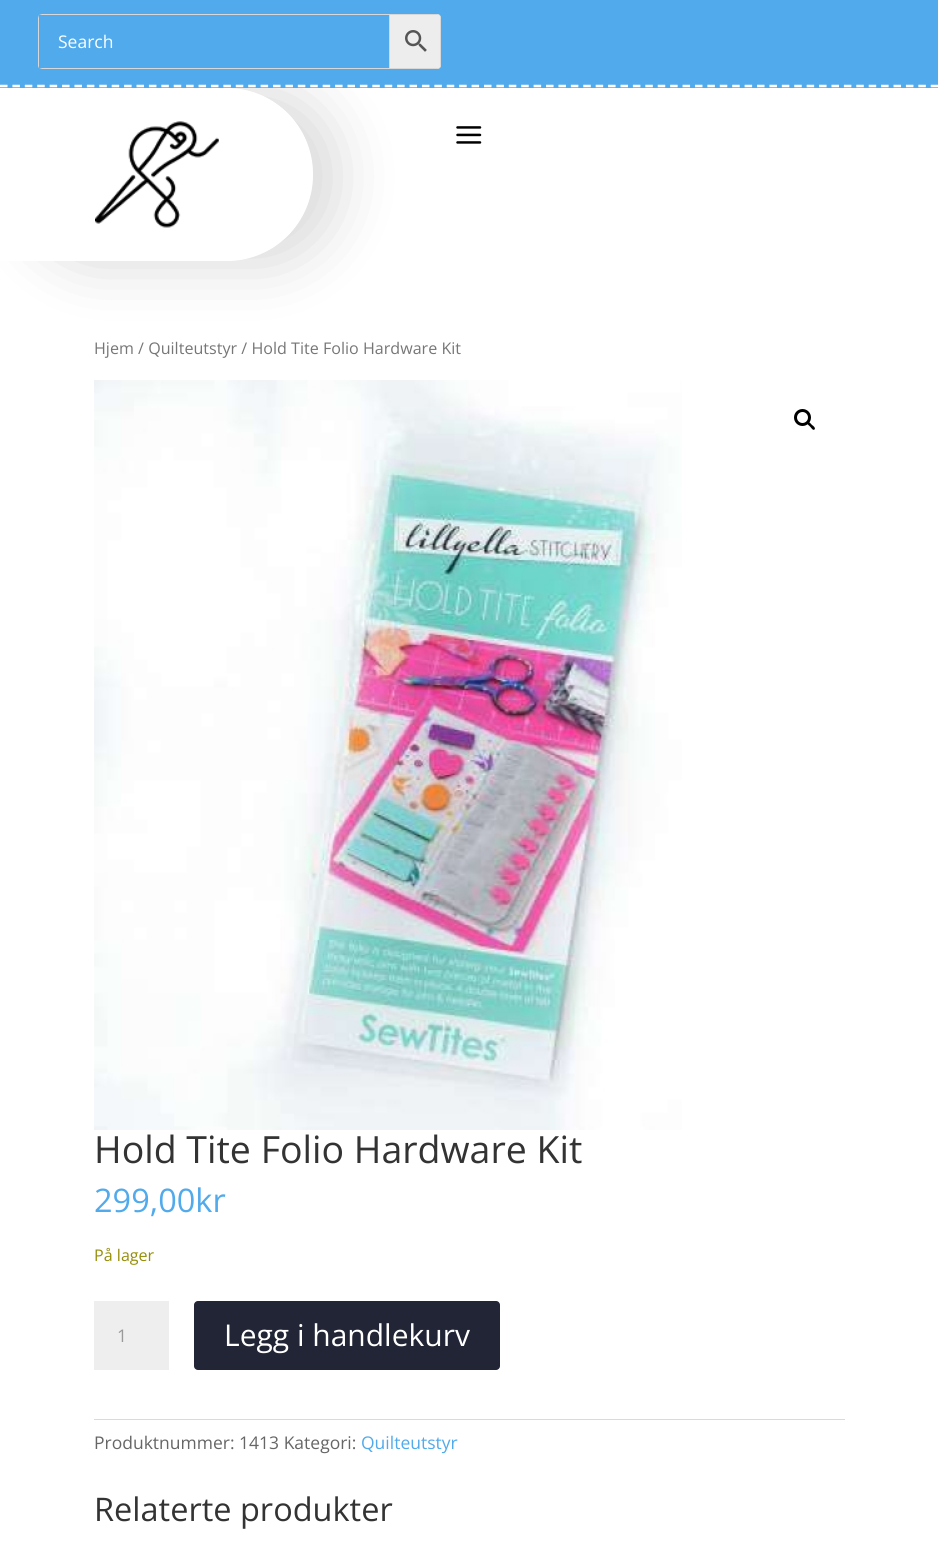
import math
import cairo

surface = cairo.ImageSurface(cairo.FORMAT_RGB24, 938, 1543)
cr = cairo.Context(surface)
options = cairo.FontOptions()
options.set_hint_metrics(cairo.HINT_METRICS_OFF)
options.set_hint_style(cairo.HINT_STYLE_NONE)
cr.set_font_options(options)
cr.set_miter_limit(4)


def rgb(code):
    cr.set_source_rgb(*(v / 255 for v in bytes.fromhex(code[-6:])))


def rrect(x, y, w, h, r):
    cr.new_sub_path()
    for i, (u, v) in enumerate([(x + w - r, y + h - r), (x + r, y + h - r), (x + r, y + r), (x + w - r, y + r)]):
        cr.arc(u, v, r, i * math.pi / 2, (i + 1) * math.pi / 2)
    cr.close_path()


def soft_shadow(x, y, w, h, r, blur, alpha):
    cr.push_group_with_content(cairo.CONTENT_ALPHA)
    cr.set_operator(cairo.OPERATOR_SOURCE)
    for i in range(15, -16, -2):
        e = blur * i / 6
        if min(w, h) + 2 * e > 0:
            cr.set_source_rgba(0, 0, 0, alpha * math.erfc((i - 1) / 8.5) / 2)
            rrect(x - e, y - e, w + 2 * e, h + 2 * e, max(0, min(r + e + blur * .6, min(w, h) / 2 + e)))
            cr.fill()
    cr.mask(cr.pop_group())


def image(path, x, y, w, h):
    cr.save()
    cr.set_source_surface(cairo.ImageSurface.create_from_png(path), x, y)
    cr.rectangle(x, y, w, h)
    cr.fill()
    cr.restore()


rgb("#ffffff")
cr.paint()
cr.save()
cr.set_fill_rule(cairo.FILL_RULE_EVEN_ODD)
cr.new_path()
cr.move_to(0, 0)
cr.line_to(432, 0)
cr.line_to(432, 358)
cr.line_to(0, 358)
cr.close_path()
cr.move_to(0, 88)
cr.line_to(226.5, 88)
cr.curve_to(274.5, 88, 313, 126.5, 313, 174.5)
cr.curve_to(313, 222.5, 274.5, 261, 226.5, 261)
cr.line_to(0, 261)
cr.close_path()
cr.clip()
rgb("#000000")
soft_shadow(25, 90, 313, 174, 87, 31, 0.15)
cr.restore()
image("img/1.png", 95, 121, 124, 107)
image("img/2.png", 456, 126, 26, 18)
rgb("#50aaeb")
cr.rectangle(0, 0, 938, 88)
cr.fill()
cr.new_path()
cr.move_to(0, 86)
cr.line_to(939, 86)
rgb("#ffffff")
cr.set_line_width(2.5)
cr.set_dash([7.5, 4.91])
cr.stroke()
rgb("#ededed")
cr.new_path()
cr.move_to(389, 14)
cr.line_to(437, 14)
cr.curve_to(439, 14, 441, 16, 441, 18)
cr.line_to(441, 65)
cr.curve_to(441, 67, 439, 69, 437, 69)
cr.line_to(389, 69)
cr.close_path()
cr.fill()
rgb("#d8d8d8")
cr.set_fill_rule(cairo.FILL_RULE_EVEN_ODD)
cr.new_path()
cr.move_to(389, 14)
cr.line_to(389, 69)
cr.line_to(437, 69)
cr.curve_to(438, 69, 439, 69, 440, 68)
cr.line_to(390, 68)
cr.line_to(390, 15)
cr.line_to(440, 15)
cr.line_to(437, 14)
cr.close_path()
cr.move_to(441, 18)
cr.line_to(440, 15)
cr.line_to(440, 68)
cr.curve_to(441, 67, 441, 66, 441, 65)
cr.close_path()
cr.fill()
cr.new_path()
cr.move_to(38, 18)
cr.line_to(38, 65)
cr.curve_to(38, 66, 38, 67, 39, 68)
cr.line_to(39, 15)
cr.close_path()
cr.move_to(42, 14)
cr.line_to(39, 15)
cr.line_to(389, 15)
cr.line_to(389, 68)
cr.line_to(39, 68)
cr.line_to(42, 69)
cr.line_to(390, 69)
cr.line_to(390, 14)
cr.close_path()
cr.fill()
image("img/3.png", 405, 30, 22, 22)
image("img/4.png", 94, 380, 588, 750)
cr.arc(802.5, 417.5, 7, 0, 2 * math.pi)
rgb("#000000")
cr.set_line_width(3)
cr.set_dash([])
cr.stroke()
cr.set_fill_rule(cairo.FILL_RULE_WINDING)
cr.new_path()
cr.move_to(807.5, 422.5)
cr.curve_to(809, 421, 811, 424, 812, 425)
cr.curve_to(813, 425.5, 816, 428, 814.5, 429.5)
cr.curve_to(813, 431, 811, 427.5, 810, 426.5)
cr.curve_to(809.5, 426, 806, 423.5, 807.5, 422.5)
cr.close_path()
cr.fill()
rgb("#eeeeee")
cr.rectangle(94, 1301, 75, 69)
cr.fill()
rgb("#212536")
rrect(194, 1301, 306, 69, 4)
cr.fill()
rgb("#dadada")
cr.rectangle(94, 1419, 751, 1)
cr.fill()
cr.select_font_face("Open Sans")
cr.set_font_size(17.5)
rgb("#ffffff")
cr.move_to(58, 48)
cr.show_text("Search")
cr.set_font_size(16.1)
rgb("#767676")
cr.move_to(94, 354)
cr.show_text("Hjem / Quilteutstyr / Hold Tite Folio Hardware Kit")
cr.set_font_size(37.5)
rgb("#333333")
cr.move_to(94, 1163)
cr.show_text("Hold Tite Folio Hardware Kit")
cr.set_font_size(32.5)
rgb("#50aaeb")
cr.move_to(94, 1212)
cr.show_text("299,00kr")
cr.set_font_size(16.1)
rgb("#958e09")
cr.move_to(94, 1261)
cr.show_text("På lager")
cr.set_font_size(17.5)
rgb("#999999")
cr.move_to(117, 1342)
cr.show_text("1")
cr.set_font_size(30)
rgb("#ffffff")
cr.move_to(224, 1346)
cr.show_text("Legg i handlekurv")
cr.set_font_size(17.5)
rgb("#666666")
cr.move_to(94, 1449)
cr.show_text("Produktnummer: 1413 Kategori:")
rgb("#50aaeb")
cr.move_to(361, 1449)
cr.show_text("Quilteutstyr")
cr.set_font_size(32.5)
rgb("#333333")
cr.move_to(94, 1521)
cr.show_text("Relaterte produkter")
surface.write_to_png("page.png")
